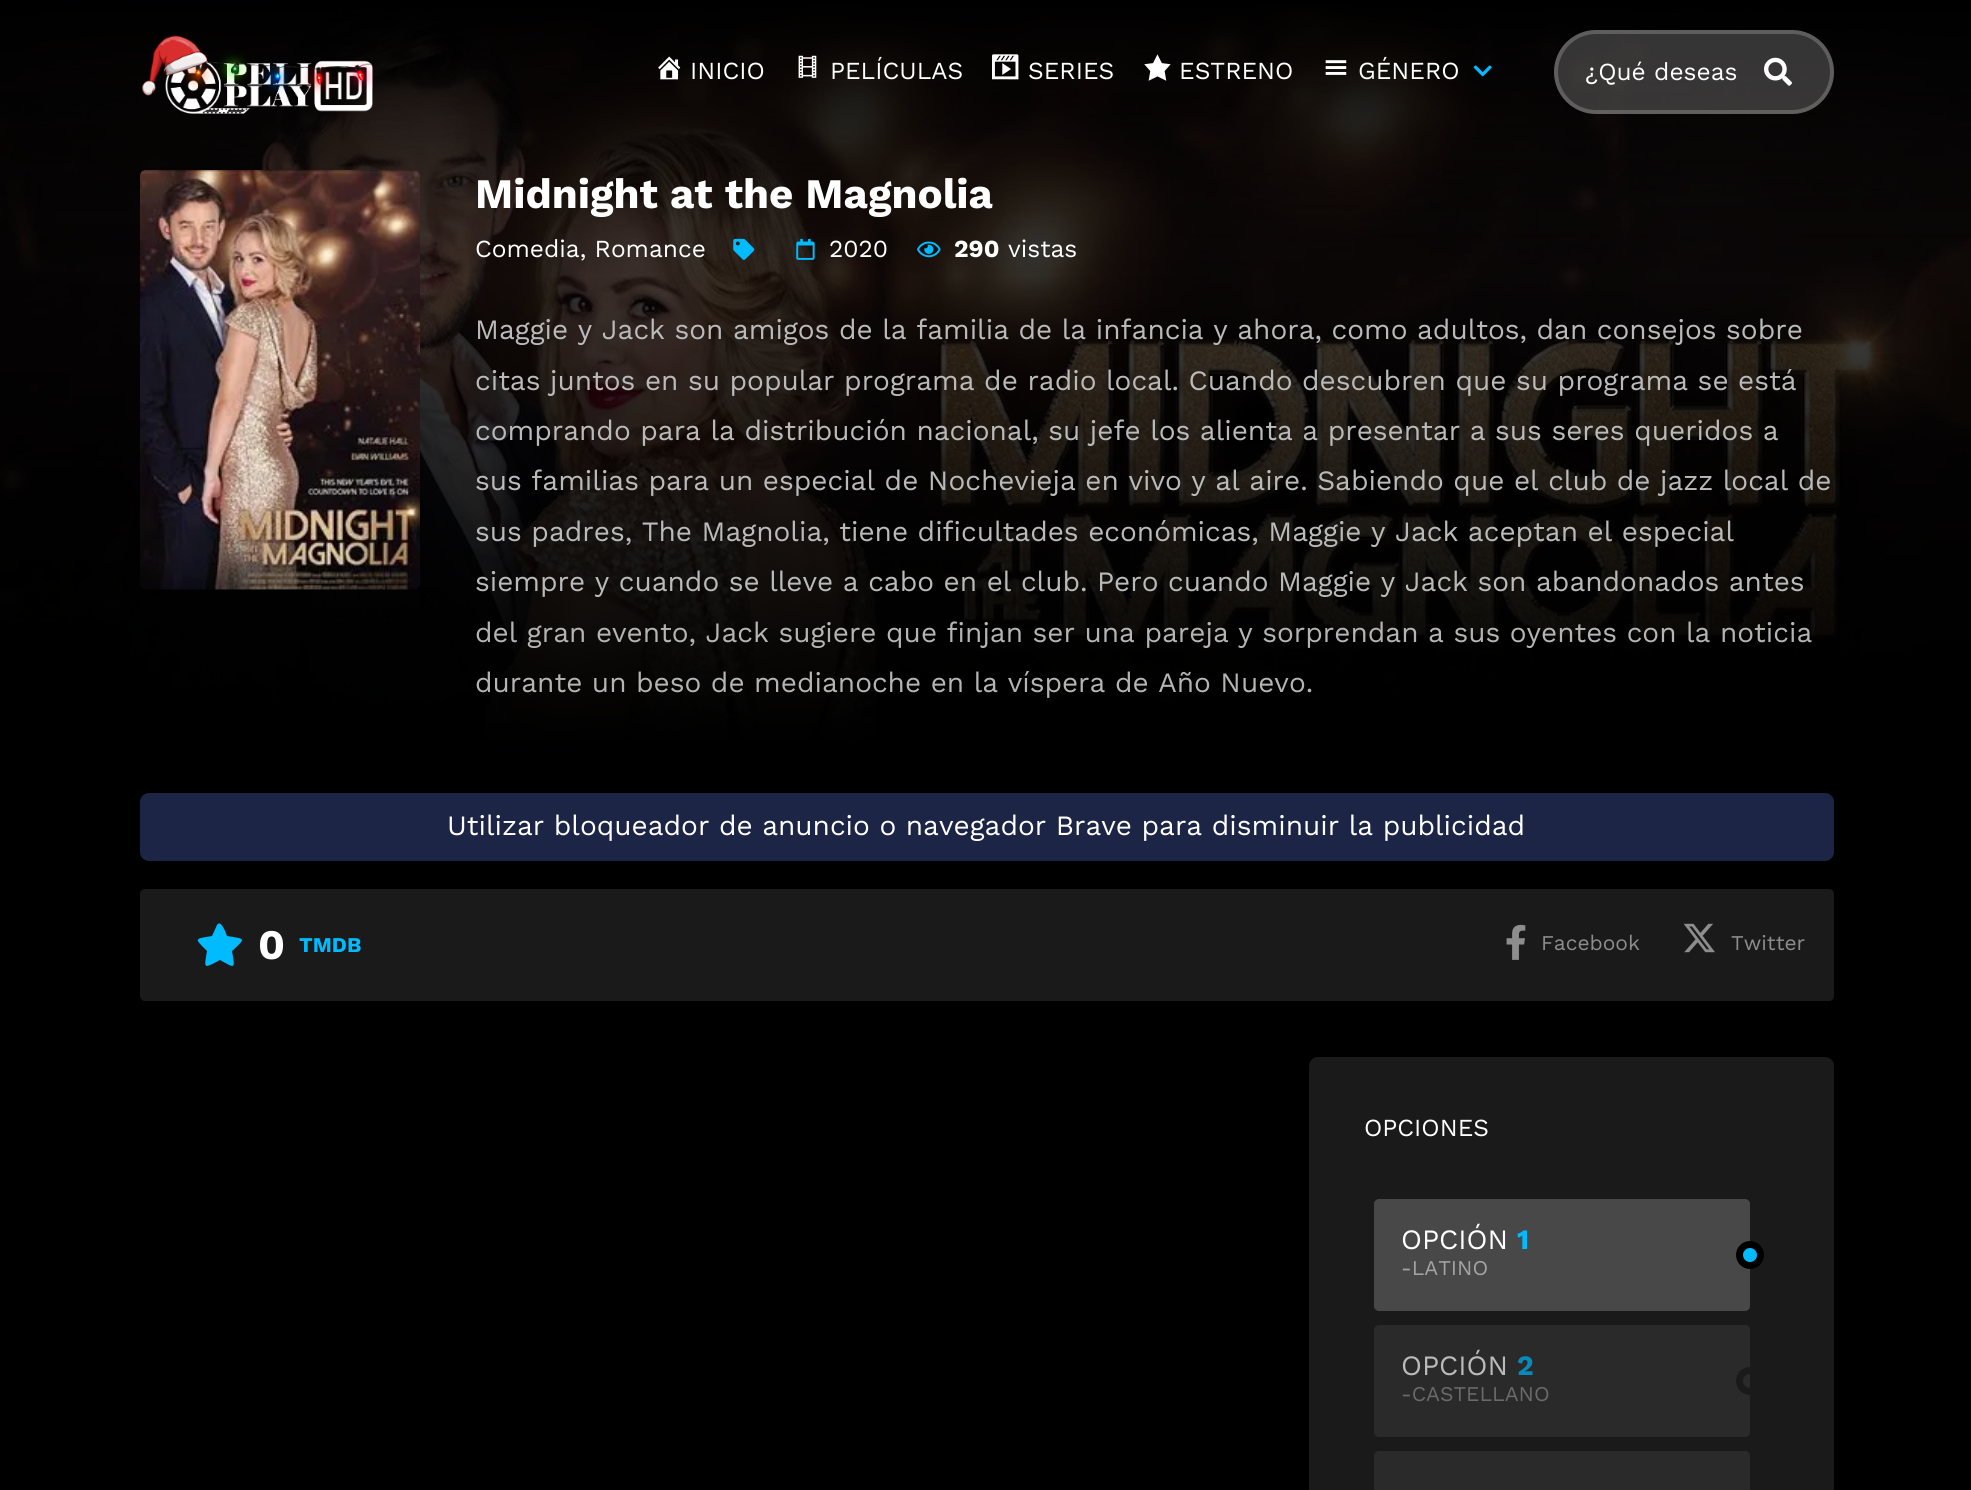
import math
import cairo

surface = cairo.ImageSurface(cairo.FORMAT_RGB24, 1971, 1490)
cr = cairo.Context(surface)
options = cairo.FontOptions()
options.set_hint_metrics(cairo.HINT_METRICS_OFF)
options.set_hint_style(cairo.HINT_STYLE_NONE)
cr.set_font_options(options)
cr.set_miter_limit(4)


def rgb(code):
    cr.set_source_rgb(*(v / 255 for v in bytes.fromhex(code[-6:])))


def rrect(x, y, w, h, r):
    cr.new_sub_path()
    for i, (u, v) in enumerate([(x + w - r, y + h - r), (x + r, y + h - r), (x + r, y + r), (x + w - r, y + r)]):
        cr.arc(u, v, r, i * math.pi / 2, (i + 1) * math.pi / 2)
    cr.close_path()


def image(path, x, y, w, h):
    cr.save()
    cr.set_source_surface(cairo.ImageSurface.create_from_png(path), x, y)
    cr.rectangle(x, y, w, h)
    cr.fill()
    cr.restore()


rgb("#000000")
cr.paint()
image("img/1.png", 0, 2, 1971, 740)
gradient = cairo.LinearGradient(986, 0, 986, 280)
gradient.add_color_stop_rgba(0, 0, 0, 0, 1)
gradient.add_color_stop_rgba(1, 0, 0, 0, 0)
cr.set_source(gradient)
cr.rectangle(0, 2, 1971, 271)
cr.fill()
gradient = cairo.LinearGradient(986, 0, 986, 746)
gradient.add_color_stop_rgba(0, 0, 0, 0, 0)
gradient.add_color_stop_rgba(1, 0, 0, 0, 1)
cr.set_source(gradient)
cr.rectangle(0, 81, 1971, 661)
cr.fill()
image("img/2.png", 141, 35, 235, 79)
image("img/3.png", 658, 56, 23, 24)
image("img/4.png", 798, 55, 19, 23)
image("img/5.png", 992, 54, 27, 26)
image("img/6.png", 1144, 54, 27, 27)
image("img/7.png", 1325, 60, 22, 15)
image("img/8.png", 1473, 65, 19, 12)
cr.set_source_rgba(1, 1, 1, 0.2)
rrect(1554, 30, 280, 84, 42)
cr.fill()
rrect(1556, 32, 276, 80, 40)
cr.set_line_width(4)
cr.stroke()
image("img/9.png", 1764, 57, 28, 29)
image("img/10.png", 140, 170, 280, 420)
image("img/11.png", 733, 238, 22, 22)
image("img/12.png", 796, 238, 19, 22)
image("img/13.png", 917, 241, 24, 17)
rgb("#1c2546")
rrect(140, 793, 1694, 68, 9)
cr.fill()
rgb("#1a1a1a")
rrect(140, 889, 1694, 112, 5)
cr.fill()
rgb("#00bbff")
cr.new_path()
cr.move_to(217, 925)
cr.curve_to(221, 918, 227, 936, 227, 936)
cr.curve_to(246, 939, 246, 938, 232, 951)
cr.curve_to(235, 969, 236, 969, 220, 960)
cr.curve_to(203, 969, 204, 969, 207, 951)
cr.curve_to(194, 938, 194, 939, 212, 936)
cr.close_path()
cr.fill()
image("img/14.png", 1506, 924, 20, 36)
image("img/15.png", 1683, 923, 32, 30)
rgb("#1a1a1a")
rrect(1309, 1057, 525, 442, 9)
cr.fill()
rgb("#484848")
rrect(1374, 1199, 376, 112, 5)
cr.fill()
rgb("#00bbff")
cr.arc(1750, 1255, 10.5, 0, 2 * math.pi)
cr.fill_preserve()
rgb("#000000")
cr.set_line_width(7)
cr.stroke()
rgb("#2a2a2a")
rrect(1374, 1325, 376, 112, 5)
cr.fill()
cr.arc(1750, 1381, 10.5, 0, 2 * math.pi)
rgb("#1a1a1a")
cr.stroke()
rgb("#2a2a2a")
rrect(1374, 1451, 376, 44, 5)
cr.fill()
cr.select_font_face("Work Sans")
cr.set_font_size(24.5)
rgb("#ffffff")
for x, y, s in [
    (690, 79, "INICIO"),
    (830, 79, "PELÍCULAS"),
    (1028, 79, "SERIES"),
    (1179, 79, "ESTRENO"),
    (1358, 79, "GÉNERO"),
    (1585, 80, "¿Qué deseas"),
]:
    cr.move_to(x, y)
    cr.show_text(s)
cr.select_font_face("Work Sans", cairo.FONT_SLANT_NORMAL, cairo.FONT_WEIGHT_BOLD)
cr.set_font_size(42)
cr.move_to(475, 208)
cr.show_text("Midnight at the Magnolia")
cr.select_font_face("Work Sans")
cr.set_font_size(24.5)
cr.move_to(475, 257)
cr.show_text("Comedia, Romance")
cr.move_to(829, 257)
cr.show_text("2020")
cr.select_font_face("Work Sans", cairo.FONT_SLANT_NORMAL, cairo.FONT_WEIGHT_BOLD)
cr.move_to(954, 257)
cr.show_text("290")
cr.select_font_face("Work Sans")
cr.move_to(1008, 257)
cr.show_text("vistas")
cr.set_font_size(28)
rgb("#bababa")
for x, y, s in [
    (475, 339, "Maggie y Jack son amigos de la familia de la infancia y ahora, como adultos, dan consejos sobre"),
    (475, 390, "citas juntos en su popular programa de radio local. Cuando descubren que su programa se está"),
    (475, 440, "comprando para la distribución nacional, su jefe los alienta a presentar a sus seres queridos a"),
    (475, 490, "sus familias para un especial de Nochevieja en vivo y al aire. Sabiendo que el club de jazz local de"),
    (475, 541, "sus padres, The Magnolia, tiene dificultades económicas, Maggie y Jack aceptan el especial"),
    (475, 591, "siempre y cuando se lleve a cabo en el club. Pero cuando Maggie y Jack son abandonados antes"),
]:
    cr.move_to(x, y)
    cr.show_text(s)
rgb("#b4b4b4")
cr.move_to(475, 642)
cr.show_text("del gran evento, Jack sugiere que finjan ser una pareja y sorprendan a sus oyentes con la noticia")
cr.move_to(475, 692)
cr.show_text("durante un beso de medianoche en la víspera de Año Nuevo.")
rgb("#ffffff")
cr.move_to(447, 835)
cr.show_text("Utilizar bloqueador de anuncio o navegador Brave para disminuir la publicidad")
cr.select_font_face("Work Sans", cairo.FONT_SLANT_NORMAL, cairo.FONT_WEIGHT_BOLD)
cr.set_font_size(42)
cr.move_to(258, 959)
cr.show_text("0")
cr.set_font_size(21)
rgb("#00bbff")
cr.move_to(299, 952)
cr.show_text("TMDB")
cr.select_font_face("Work Sans")
rgb("#8d8d8d")
cr.move_to(1541, 950)
cr.show_text("Facebook")
cr.move_to(1731, 950)
cr.show_text("Twitter")
cr.set_font_size(24.5)
rgb("#ffffff")
cr.move_to(1364, 1136)
cr.show_text("OPCIONES")
cr.set_font_size(28)
cr.move_to(1401, 1249)
cr.show_text("OPCIÓN")
cr.select_font_face("Work Sans", cairo.FONT_SLANT_NORMAL, cairo.FONT_WEIGHT_BOLD)
rgb("#00bbff")
cr.move_to(1517, 1249)
cr.show_text("1")
cr.select_font_face("Work Sans")
cr.set_font_size(21)
rgb("#a4a4a4")
cr.move_to(1401, 1275)
cr.show_text("-LATINO")
cr.set_font_size(28)
rgb("#bababa")
cr.move_to(1401, 1375)
cr.show_text("OPCIÓN")
cr.select_font_face("Work Sans", cairo.FONT_SLANT_NORMAL, cairo.FONT_WEIGHT_BOLD)
rgb("#088bba")
cr.move_to(1517, 1375)
cr.show_text("2")
cr.select_font_face("Work Sans")
cr.set_font_size(21)
rgb("#6a6a6a")
cr.move_to(1401, 1401)
cr.show_text("-CASTELLANO")
surface.write_to_png("page.png")
